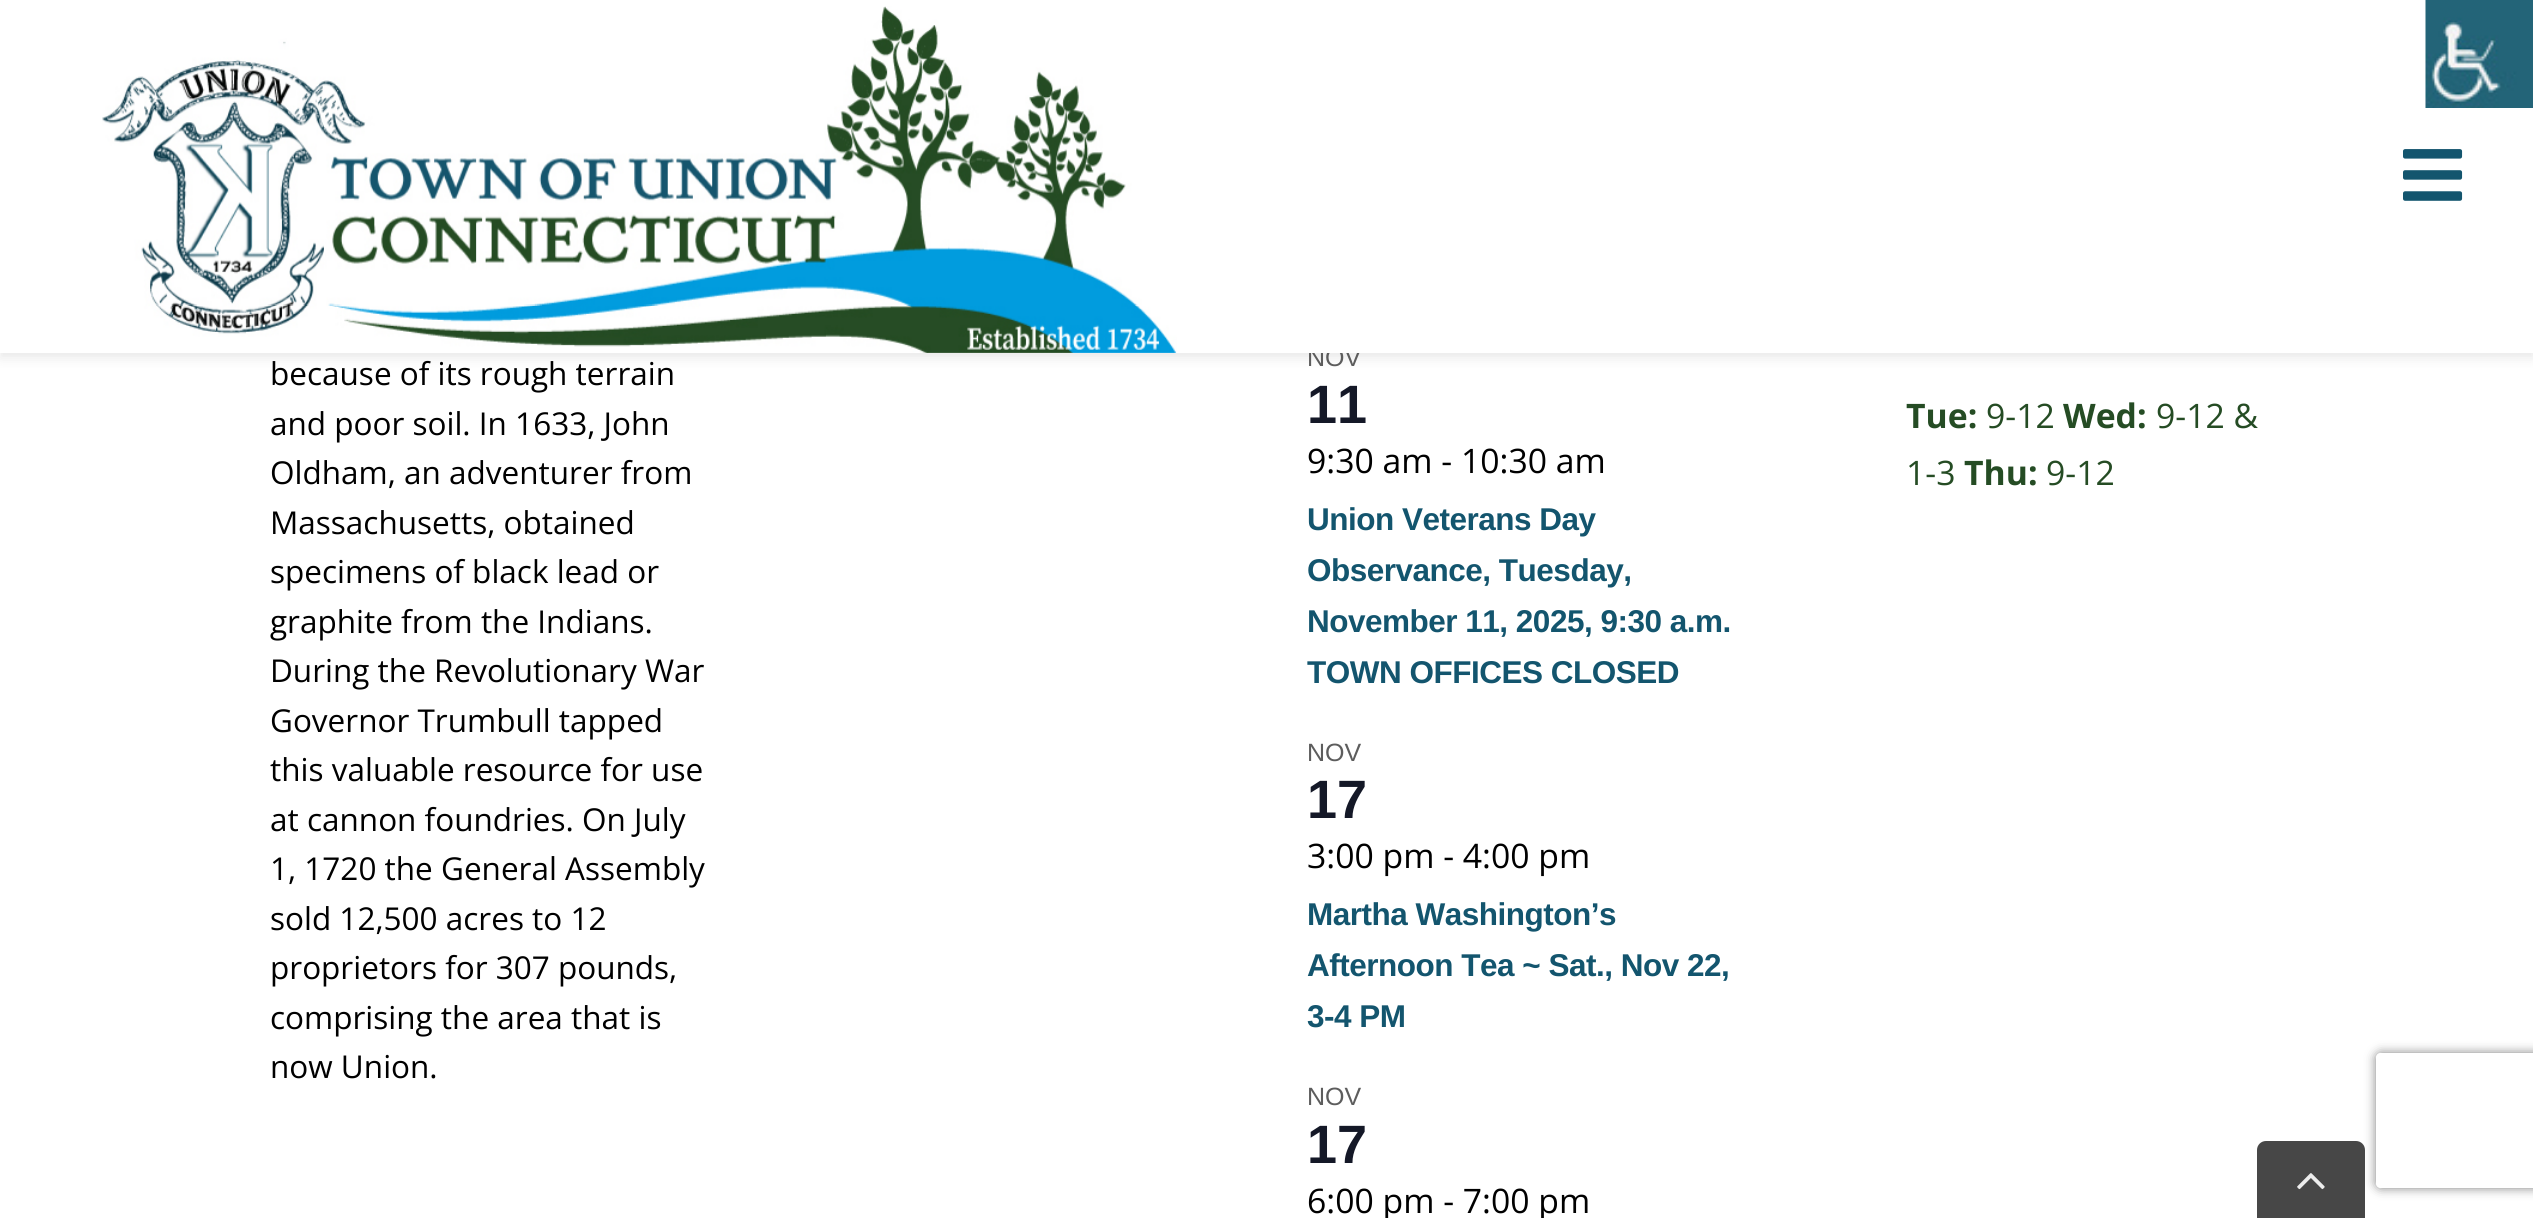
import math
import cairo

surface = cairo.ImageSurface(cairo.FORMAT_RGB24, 2533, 1218)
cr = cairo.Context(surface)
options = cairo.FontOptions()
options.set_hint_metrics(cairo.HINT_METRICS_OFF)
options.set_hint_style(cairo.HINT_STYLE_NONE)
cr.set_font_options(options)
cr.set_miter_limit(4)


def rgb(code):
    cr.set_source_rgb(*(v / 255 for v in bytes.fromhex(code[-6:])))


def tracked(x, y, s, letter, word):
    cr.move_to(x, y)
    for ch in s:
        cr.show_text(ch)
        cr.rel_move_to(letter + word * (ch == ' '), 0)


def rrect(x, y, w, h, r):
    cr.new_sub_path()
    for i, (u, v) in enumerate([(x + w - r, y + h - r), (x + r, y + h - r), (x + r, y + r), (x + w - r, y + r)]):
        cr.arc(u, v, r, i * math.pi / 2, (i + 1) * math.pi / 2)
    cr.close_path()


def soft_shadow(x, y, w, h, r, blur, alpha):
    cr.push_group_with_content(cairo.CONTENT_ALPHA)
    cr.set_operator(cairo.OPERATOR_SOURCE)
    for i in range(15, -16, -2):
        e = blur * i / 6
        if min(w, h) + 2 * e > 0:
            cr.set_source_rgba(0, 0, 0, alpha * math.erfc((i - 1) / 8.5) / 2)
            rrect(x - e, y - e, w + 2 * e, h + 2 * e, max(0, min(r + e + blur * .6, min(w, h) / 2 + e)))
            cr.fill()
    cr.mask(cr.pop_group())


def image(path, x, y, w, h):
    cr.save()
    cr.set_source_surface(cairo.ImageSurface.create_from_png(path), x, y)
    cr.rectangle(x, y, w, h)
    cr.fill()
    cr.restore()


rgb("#ffffff")
cr.paint()
rgb("#212121")
soft_shadow(0, 5, 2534, 353, 0, 5.5, 0.1)
cr.save()
cr.set_fill_rule(cairo.FILL_RULE_EVEN_ODD)
cr.new_path()
cr.move_to(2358, 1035)
cr.line_to(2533, 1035)
cr.line_to(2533, 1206)
cr.line_to(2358, 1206)
cr.close_path()
cr.move_to(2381, 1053)
cr.line_to(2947, 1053)
cr.curve_to(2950, 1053, 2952, 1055, 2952, 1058)
cr.line_to(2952, 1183)
cr.curve_to(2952, 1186, 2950, 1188, 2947, 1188)
cr.line_to(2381, 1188)
cr.curve_to(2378, 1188, 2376, 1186, 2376, 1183)
cr.line_to(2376, 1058)
cr.curve_to(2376, 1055, 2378, 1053, 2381, 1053)
cr.close_path()
cr.clip()
rgb("#808080")
soft_shadow(2376, 1053, 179, 135, 5, 5.5, 1)
cr.restore()
rgb("#474747")
cr.new_path()
cr.move_to(2266, 1141)
cr.line_to(2356, 1141)
cr.curve_to(2361, 1141, 2365, 1145, 2365, 1150)
cr.line_to(2365, 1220)
cr.line_to(2257, 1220)
cr.line_to(2257, 1150)
cr.curve_to(2257, 1145, 2261, 1141, 2266, 1141)
cr.close_path()
cr.fill()
image("img/4.png", 2297, 1173, 28, 17)
cr.select_font_face("Open Sans")
cr.set_font_size(31.5)
rgb("#000000")
for x, y, s in [
    (270, 385, "because of its rough terrain"),
    (270, 435, "and poor soil. In 1633, John"),
    (270, 484, "Oldham, an adventurer from"),
    (270, 534, "Massachusetts, obtained"),
    (270, 583, "specimens of black lead or"),
    (270, 633, "graphite from the Indians."),
    (270, 682, "During the Revolutionary War"),
    (270, 732, "Governor Trumbull tapped"),
    (270, 781, "this valuable resource for use"),
    (270, 831, "at cannon foundries. On July"),
    (270, 880, "1, 1720 the General Assembly"),
    (270, 930, "sold 12,500 acres to 12"),
    (270, 979, "proprietors for 307 pounds,"),
    (270, 1029, "comprising the area that is"),
    (270, 1078, "now Union."),
]:
    cr.move_to(x, y)
    cr.show_text(s)
cr.select_font_face("Liberation Sans")
cr.set_font_size(25)
rgb("#5d5d5d")
cr.move_to(1307, 366)
cr.show_text("NOV")
rgb("#ffffff")
cr.rectangle(0, 0, 2533, 353)
cr.fill()
image("img/1.png", 2425, 0, 108, 108)
image("img/2.png", 102, 6, 1075, 347)
image("img/3.png", 2403, 149, 60, 52)
cr.select_font_face("Liberation Sans", cairo.FONT_SLANT_NORMAL, cairo.FONT_WEIGHT_BOLD)
cr.set_font_size(54)
rgb("#141827")
cr.move_to(1307, 423)
cr.show_text("11")
cr.select_font_face("Open Sans")
cr.set_font_size(33.75)
rgb("#000000")
cr.move_to(1307, 473)
cr.show_text("9:30 am - 10:30 am")
cr.select_font_face("Liberation Sans", cairo.FONT_SLANT_NORMAL, cairo.FONT_WEIGHT_BOLD)
cr.set_font_size(31.5)
rgb("#13556e")
for x, y, s in [
    (1307, 530, "Union Veterans Day"),
    (1307, 581, "Observance, Tuesday,"),
    (1307, 632, "November 11, 2025, 9:30 a.m."),
    (1307, 683, "TOWN OFFICES CLOSED"),
]:
    tracked(x, y, s, -0.5, 0)
cr.select_font_face("Liberation Sans")
cr.set_font_size(25)
rgb("#5d5d5d")
cr.move_to(1307, 761)
cr.show_text("NOV")
cr.select_font_face("Liberation Sans", cairo.FONT_SLANT_NORMAL, cairo.FONT_WEIGHT_BOLD)
cr.set_font_size(54)
rgb("#141827")
cr.move_to(1307, 818)
cr.show_text("17")
cr.select_font_face("Open Sans")
cr.set_font_size(33.75)
rgb("#000000")
cr.move_to(1307, 868)
cr.show_text("3:00 pm - 4:00 pm")
cr.select_font_face("Liberation Sans", cairo.FONT_SLANT_NORMAL, cairo.FONT_WEIGHT_BOLD)
cr.set_font_size(31.5)
rgb("#13556e")
for x, y, s in [
    (1307, 925, "Martha Washington’s"),
    (1307, 976, "Afternoon Tea ~ Sat., Nov 22,"),
    (1307, 1027, "3-4 PM"),
]:
    tracked(x, y, s, -0.5, 0)
cr.select_font_face("Liberation Sans")
cr.set_font_size(25)
rgb("#5d5d5d")
cr.move_to(1307, 1105)
cr.show_text("NOV")
cr.select_font_face("Liberation Sans", cairo.FONT_SLANT_NORMAL, cairo.FONT_WEIGHT_BOLD)
cr.set_font_size(54)
rgb("#141827")
cr.move_to(1307, 1163)
cr.show_text("17")
cr.select_font_face("Open Sans")
cr.set_font_size(33.75)
rgb("#000000")
cr.move_to(1307, 1213)
cr.show_text("6:00 pm - 7:00 pm")
cr.select_font_face("Open Sans", cairo.FONT_SLANT_NORMAL, cairo.FONT_WEIGHT_BOLD)
rgb("#254c24")
cr.move_to(1906, 428)
cr.show_text("Tue:")
cr.select_font_face("Open Sans")
cr.move_to(1986, 428)
cr.show_text("9-12")
cr.select_font_face("Open Sans", cairo.FONT_SLANT_NORMAL, cairo.FONT_WEIGHT_BOLD)
cr.move_to(2063, 428)
cr.show_text("Wed:")
cr.select_font_face("Open Sans")
cr.move_to(2156, 428)
cr.show_text("9-12 &")
cr.move_to(1906, 485)
cr.show_text("1-3")
cr.select_font_face("Open Sans", cairo.FONT_SLANT_NORMAL, cairo.FONT_WEIGHT_BOLD)
cr.move_to(1964, 485)
cr.show_text("Thu:")
cr.select_font_face("Open Sans")
cr.move_to(2046, 485)
cr.show_text("9-12")
surface.write_to_png("page.png")
